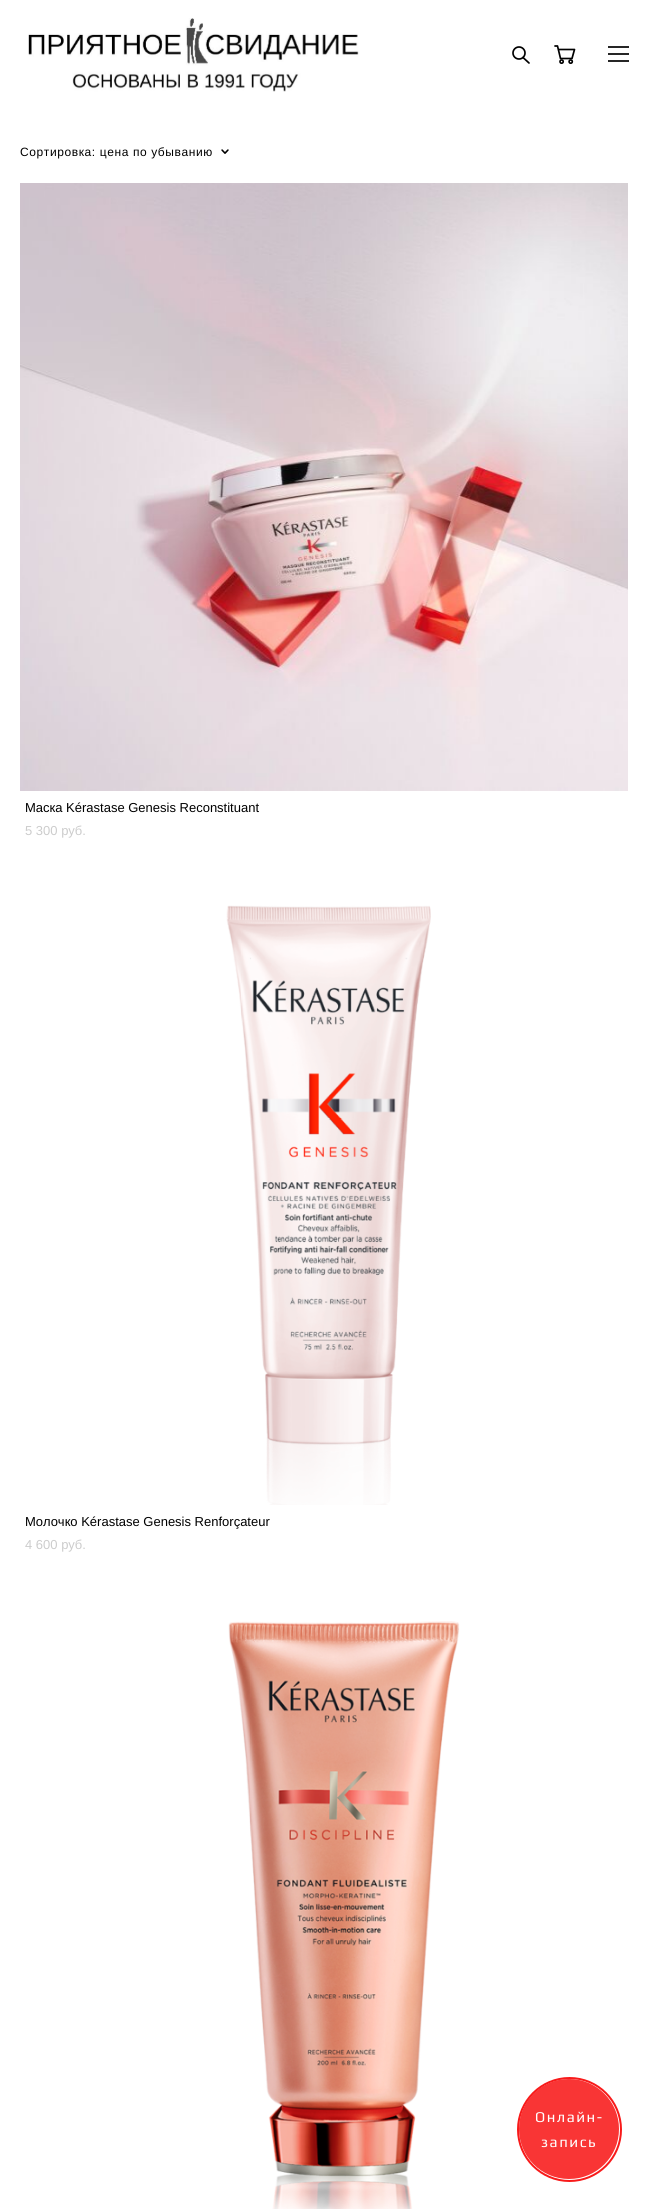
import math
import cairo

surface = cairo.ImageSurface(cairo.FORMAT_RGB24, 649, 2209)
cr = cairo.Context(surface)
options = cairo.FontOptions()
options.set_hint_metrics(cairo.HINT_METRICS_OFF)
options.set_hint_style(cairo.HINT_STYLE_NONE)
cr.set_font_options(options)
cr.set_miter_limit(4)


def rgb(code):
    cr.set_source_rgb(*(v / 255 for v in bytes.fromhex(code[-6:])))


def tracked(x, y, s, letter, word):
    cr.move_to(x, y)
    for ch in s:
        cr.show_text(ch)
        cr.rel_move_to(letter + word * (ch == ' '), 0)


def image(path, x, y, w, h):
    cr.save()
    cr.set_source_surface(cairo.ImageSurface.create_from_png(path), x, y)
    cr.rectangle(x, y, w, h)
    cr.fill()
    cr.restore()


rgb("#ffffff")
cr.paint()
image("img/1.png", 28, 18, 331, 74)
cr.arc(519, 53, 6, 0, 2 * math.pi)
rgb("#000000")
cr.set_line_width(1.7)
cr.stroke()
cr.new_path()
cr.move_to(523, 57.5)
cr.line_to(529, 63)
cr.set_line_cap(cairo.LINE_CAP_ROUND)
cr.set_line_join(cairo.LINE_JOIN_ROUND)
cr.stroke()
cr.new_path()
cr.move_to(555, 46)
cr.line_to(557.5, 46)
cr.line_to(560.5, 58.5)
cr.line_to(572, 58.5)
cr.line_to(574.5, 49.5)
cr.line_to(559, 49.5)
cr.stroke()
cr.arc(561.6, 61.6, 1.6, 0, 2 * math.pi)
cr.set_line_cap(cairo.LINE_CAP_BUTT)
cr.set_line_join(cairo.LINE_JOIN_MITER)
cr.stroke()
cr.arc(570.7, 61.6, 1.6, 0, 2 * math.pi)
cr.stroke()
for x, y, w, h, color in [
    (608, 46, 21, 2, "#262626"),
    (608, 53, 21, 2, "#262626"),
    (608, 60, 21, 2, "#262626"),
]:
    rgb(color)
    cr.rectangle(x, y, w, h)
    cr.fill()
image("img/2.png", 221, 149, 8, 5)
image("img/3.png", 20, 183, 608, 608)
image("img/4.png", 226, 905, 205, 600)
image("img/5.png", 228, 1621, 232, 588)
rgb("#f93535")
cr.arc(569, 2129, 50, 0, 2 * math.pi)
cr.fill()
cr.arc(569.5, 2129.5, 51.5, 0, 2 * math.pi)
cr.set_source_rgba(0.969, 0.008, 0.008, 0.9)
cr.set_line_width(2)
cr.stroke()
cr.select_font_face("Liberation Sans")
cr.set_font_size(12)
rgb("#000000")
tracked(20, 156, "Сортировка: цена по убыванию", 0.6, 0)
cr.set_font_size(13)
cr.move_to(25, 812)
cr.show_text("Маска Kérastase Genesis Reconstituant")
rgb("#cccccc")
cr.move_to(25, 835)
cr.show_text("5 300 pуб.")
rgb("#000000")
cr.move_to(25, 1526)
cr.show_text("Молочко Kérastase Genesis Renforçateur")
rgb("#cccccc")
cr.move_to(25, 1549)
cr.show_text("4 600 pуб.")
cr.select_font_face("Play")
cr.set_font_size(15)
rgb("#ffffff")
tracked(535, 2122, "Онлайн-", 1.5, 0)
tracked(541, 2147, "запись", 1.5, 0)
surface.write_to_png("page.png")
